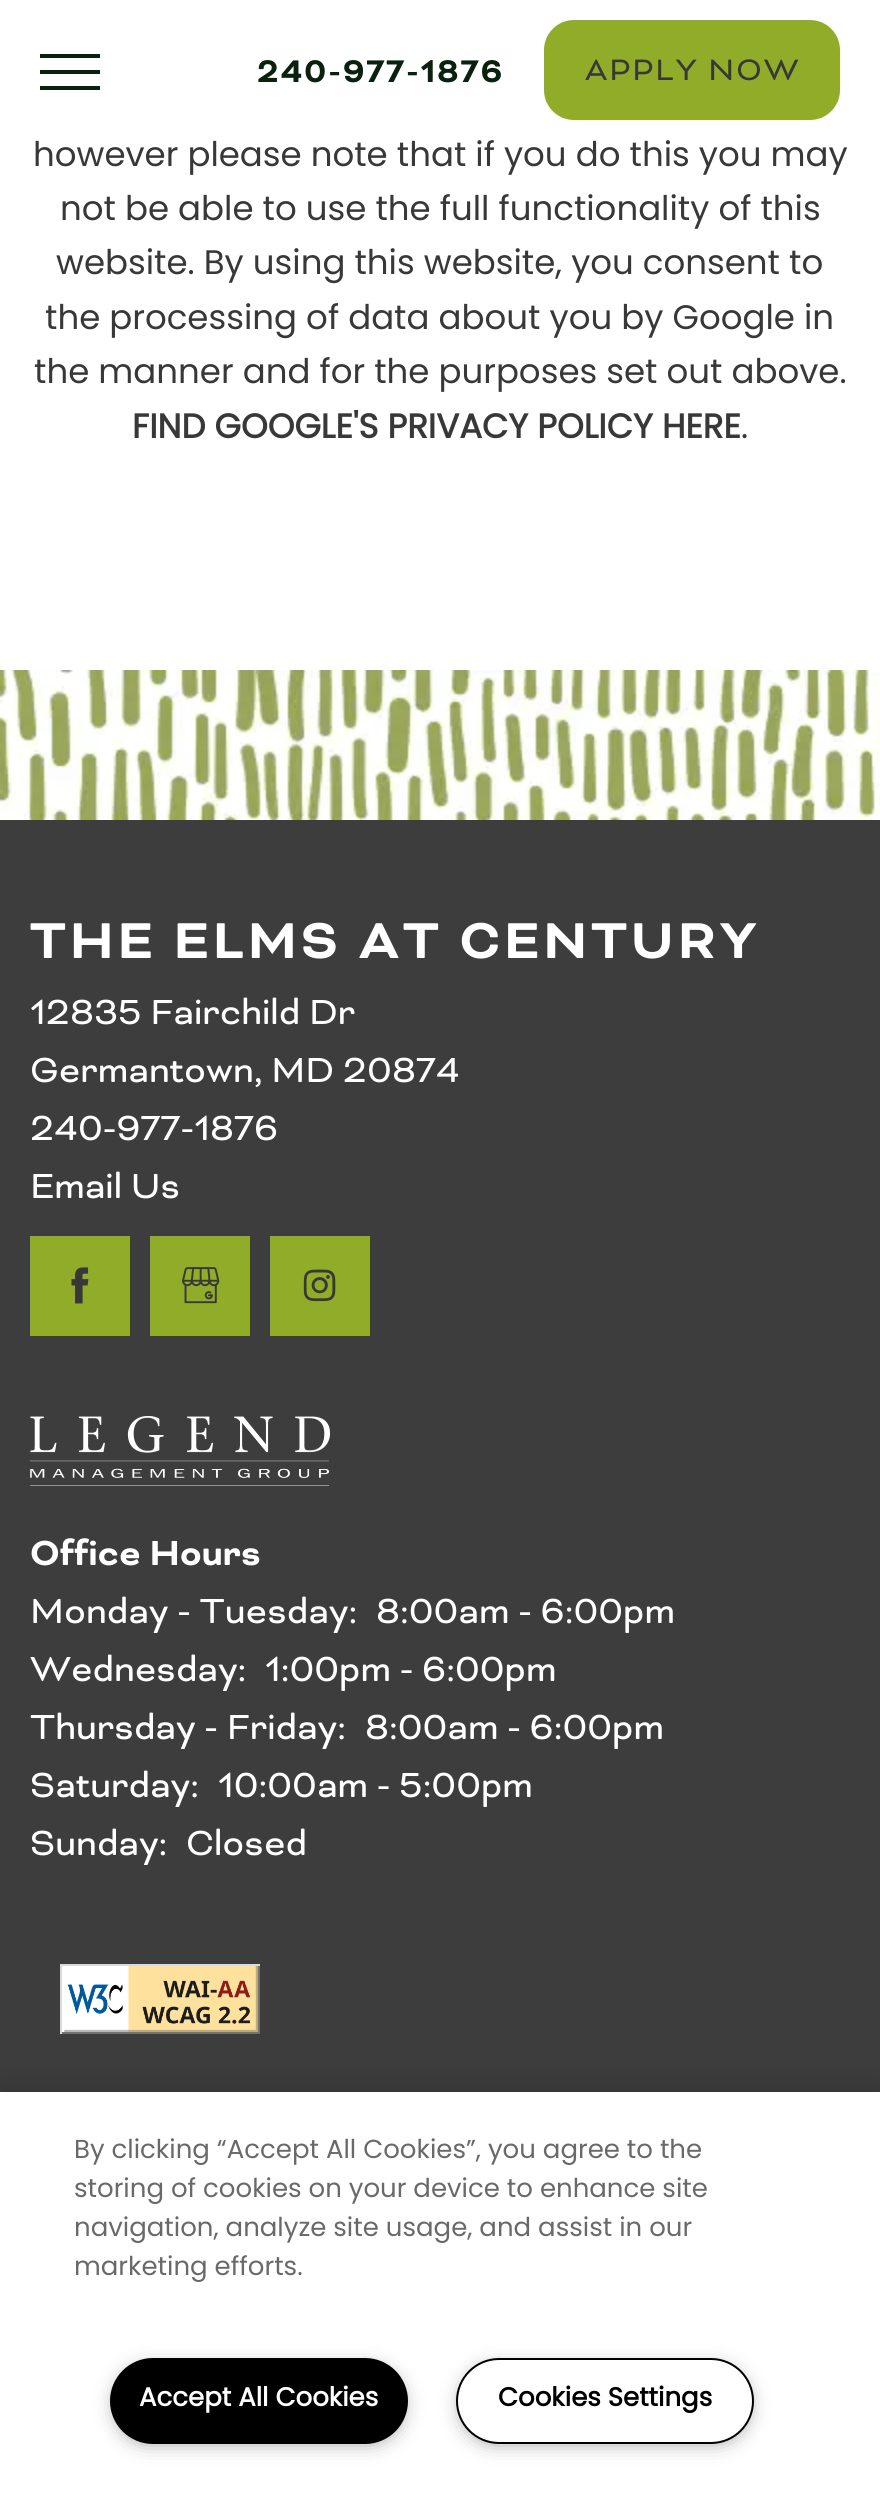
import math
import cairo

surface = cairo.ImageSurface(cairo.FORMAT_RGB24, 880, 2493)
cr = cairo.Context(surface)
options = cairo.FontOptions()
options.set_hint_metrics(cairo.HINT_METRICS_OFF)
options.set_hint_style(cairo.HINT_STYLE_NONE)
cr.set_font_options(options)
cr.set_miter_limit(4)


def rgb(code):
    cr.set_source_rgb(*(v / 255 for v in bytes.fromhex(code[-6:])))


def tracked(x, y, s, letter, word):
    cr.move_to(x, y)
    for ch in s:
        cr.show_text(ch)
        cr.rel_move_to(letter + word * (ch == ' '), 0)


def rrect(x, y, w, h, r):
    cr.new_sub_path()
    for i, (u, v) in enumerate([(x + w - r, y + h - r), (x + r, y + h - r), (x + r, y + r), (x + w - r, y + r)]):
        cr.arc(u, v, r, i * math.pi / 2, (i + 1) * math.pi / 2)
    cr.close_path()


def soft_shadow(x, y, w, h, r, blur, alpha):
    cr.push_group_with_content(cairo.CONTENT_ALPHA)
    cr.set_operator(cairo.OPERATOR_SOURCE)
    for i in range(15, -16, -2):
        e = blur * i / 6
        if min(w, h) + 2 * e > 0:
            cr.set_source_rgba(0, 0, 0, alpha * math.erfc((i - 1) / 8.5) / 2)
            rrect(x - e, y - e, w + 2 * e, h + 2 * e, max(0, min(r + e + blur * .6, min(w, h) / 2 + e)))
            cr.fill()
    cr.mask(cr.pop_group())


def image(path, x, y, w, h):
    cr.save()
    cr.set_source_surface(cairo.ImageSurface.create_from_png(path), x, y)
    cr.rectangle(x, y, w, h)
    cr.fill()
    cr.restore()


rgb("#ffffff")
cr.paint()
for x, y, w, h, color in [
    (40, 54, 60, 4, "#0a210f"),
    (40, 70, 60, 4, "#0a210f"),
    (40, 86, 60, 4, "#0a210f"),
]:
    rgb(color)
    cr.rectangle(x, y, w, h)
    cr.fill()
rgb("#90ac28")
rrect(544, 20, 296, 100, 30)
cr.fill()
image("img/1.png", 0, 670, 880, 150)
rgb("#3d3d3d")
cr.rectangle(0, 820, 880, 1272)
cr.fill()
rgb("#90ac28")
cr.rectangle(30, 1236, 100, 100)
cr.fill()
image("img/2.png", 71, 1267, 18, 37)
cr.rectangle(150, 1236, 100, 100)
cr.fill()
image("img/3.png", 182, 1267, 38, 37)
cr.rectangle(270, 1236, 100, 100)
cr.fill()
image("img/4.png", 303, 1269, 33, 33)
image("img/5.png", 30, 1416, 300, 70)
image("img/6.png", 60, 1964, 200, 70)
rgb("#000000")
soft_shadow(0, 2092, 880, 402, 0, 18, 0.2)
rgb("#ffffff")
cr.rectangle(0, 2092, 880, 401)
cr.fill()
rgb("#999999")
soft_shadow(116, 2368, 286, 74, 37, 10, 1)
rgb("#000000")
rrect(111, 2359, 296, 84, 42)
cr.fill_preserve()
cr.stroke()
rgb("#999999")
soft_shadow(462, 2368, 286, 74, 37, 10, 1)
rgb("#ffffff")
rrect(457, 2359, 296, 84, 42)
cr.fill_preserve()
rgb("#000000")
cr.stroke()
cr.select_font_face("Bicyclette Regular", cairo.FONT_SLANT_NORMAL, cairo.FONT_WEIGHT_BOLD)
cr.set_font_size(36)
rgb("#0a210f")
tracked(257, 82, "240-977-1876", 2, 0)
cr.select_font_face("Bicyclette Regular")
cr.set_font_size(34)
rgb("#383838")
tracked(585, 80, "APPLY NOW", 2, 0)
cr.select_font_face("Poppins")
for x, y, s in [
    (33, 166, "however please note that if you do this you may"),
    (60, 220, "not be able to use the full functionality of this"),
    (56, 274, "website. By using this website, you consent to"),
    (45, 329, "the processing of data about you by Google in"),
    (34, 383, "the manner and for the purposes set out above."),
]:
    cr.move_to(x, y)
    cr.show_text(s)
cr.select_font_face("Poppins", cairo.FONT_SLANT_NORMAL, cairo.FONT_WEIGHT_BOLD)
cr.move_to(132, 438)
cr.show_text("FIND GOOGLE'S PRIVACY POLICY HERE")
cr.select_font_face("Poppins")
cr.move_to(741, 438)
cr.show_text(".")
cr.select_font_face("Bicyclette Regular", cairo.FONT_SLANT_NORMAL, cairo.FONT_WEIGHT_BOLD)
cr.set_font_size(57.9)
rgb("#ffffff")
tracked(30, 958, "THE ELMS AT CENTURY", 4, 0)
cr.select_font_face("Bicyclette Regular")
cr.set_font_size(40)
for x, y, s in [
    (30, 1024, "12835 Fairchild Dr"),
    (30, 1082, "Germantown, MD 20874"),
    (30, 1140, "240-977-1876"),
    (30, 1198, "Email Us"),
]:
    cr.move_to(x, y)
    cr.show_text(s)
cr.select_font_face("Bicyclette Regular", cairo.FONT_SLANT_NORMAL, cairo.FONT_WEIGHT_BOLD)
cr.move_to(30, 1565)
cr.show_text("Office Hours")
cr.select_font_face("Bicyclette Regular")
for x, y, s in [
    (30, 1623, "Monday - Tuesday:"),
    (376, 1623, "8:00am - 6:00pm"),
    (30, 1681, "Wednesday:"),
    (265, 1681, "1:00pm - 6:00pm"),
    (30, 1739, "Thursday - Friday:"),
    (365, 1739, "8:00am - 6:00pm"),
    (30, 1797, "Saturday:"),
    (218, 1797, "10:00am - 5:00pm"),
    (30, 1855, "Sunday:"),
    (186, 1855, "Closed"),
]:
    cr.move_to(x, y)
    cr.show_text(s)
cr.select_font_face("Poppins")
cr.set_font_size(26)
rgb("#696969")
for x, y, s in [
    (74, 2158, "By clicking “Accept All Cookies”, you agree to the"),
    (74, 2197, "storing of cookies on your device to enhance site"),
    (74, 2236, "navigation, analyze site usage, and assist in our"),
    (74, 2275, "marketing efforts."),
]:
    cr.move_to(x, y)
    cr.show_text(s)
cr.select_font_face("Poppins", cairo.FONT_SLANT_NORMAL, cairo.FONT_WEIGHT_BOLD)
rgb("#ffffff")
cr.move_to(139, 2406)
cr.show_text("Accept All Cookies")
rgb("#000000")
cr.move_to(498, 2406)
cr.show_text("Cookies Settings")
surface.write_to_png("page.png")
